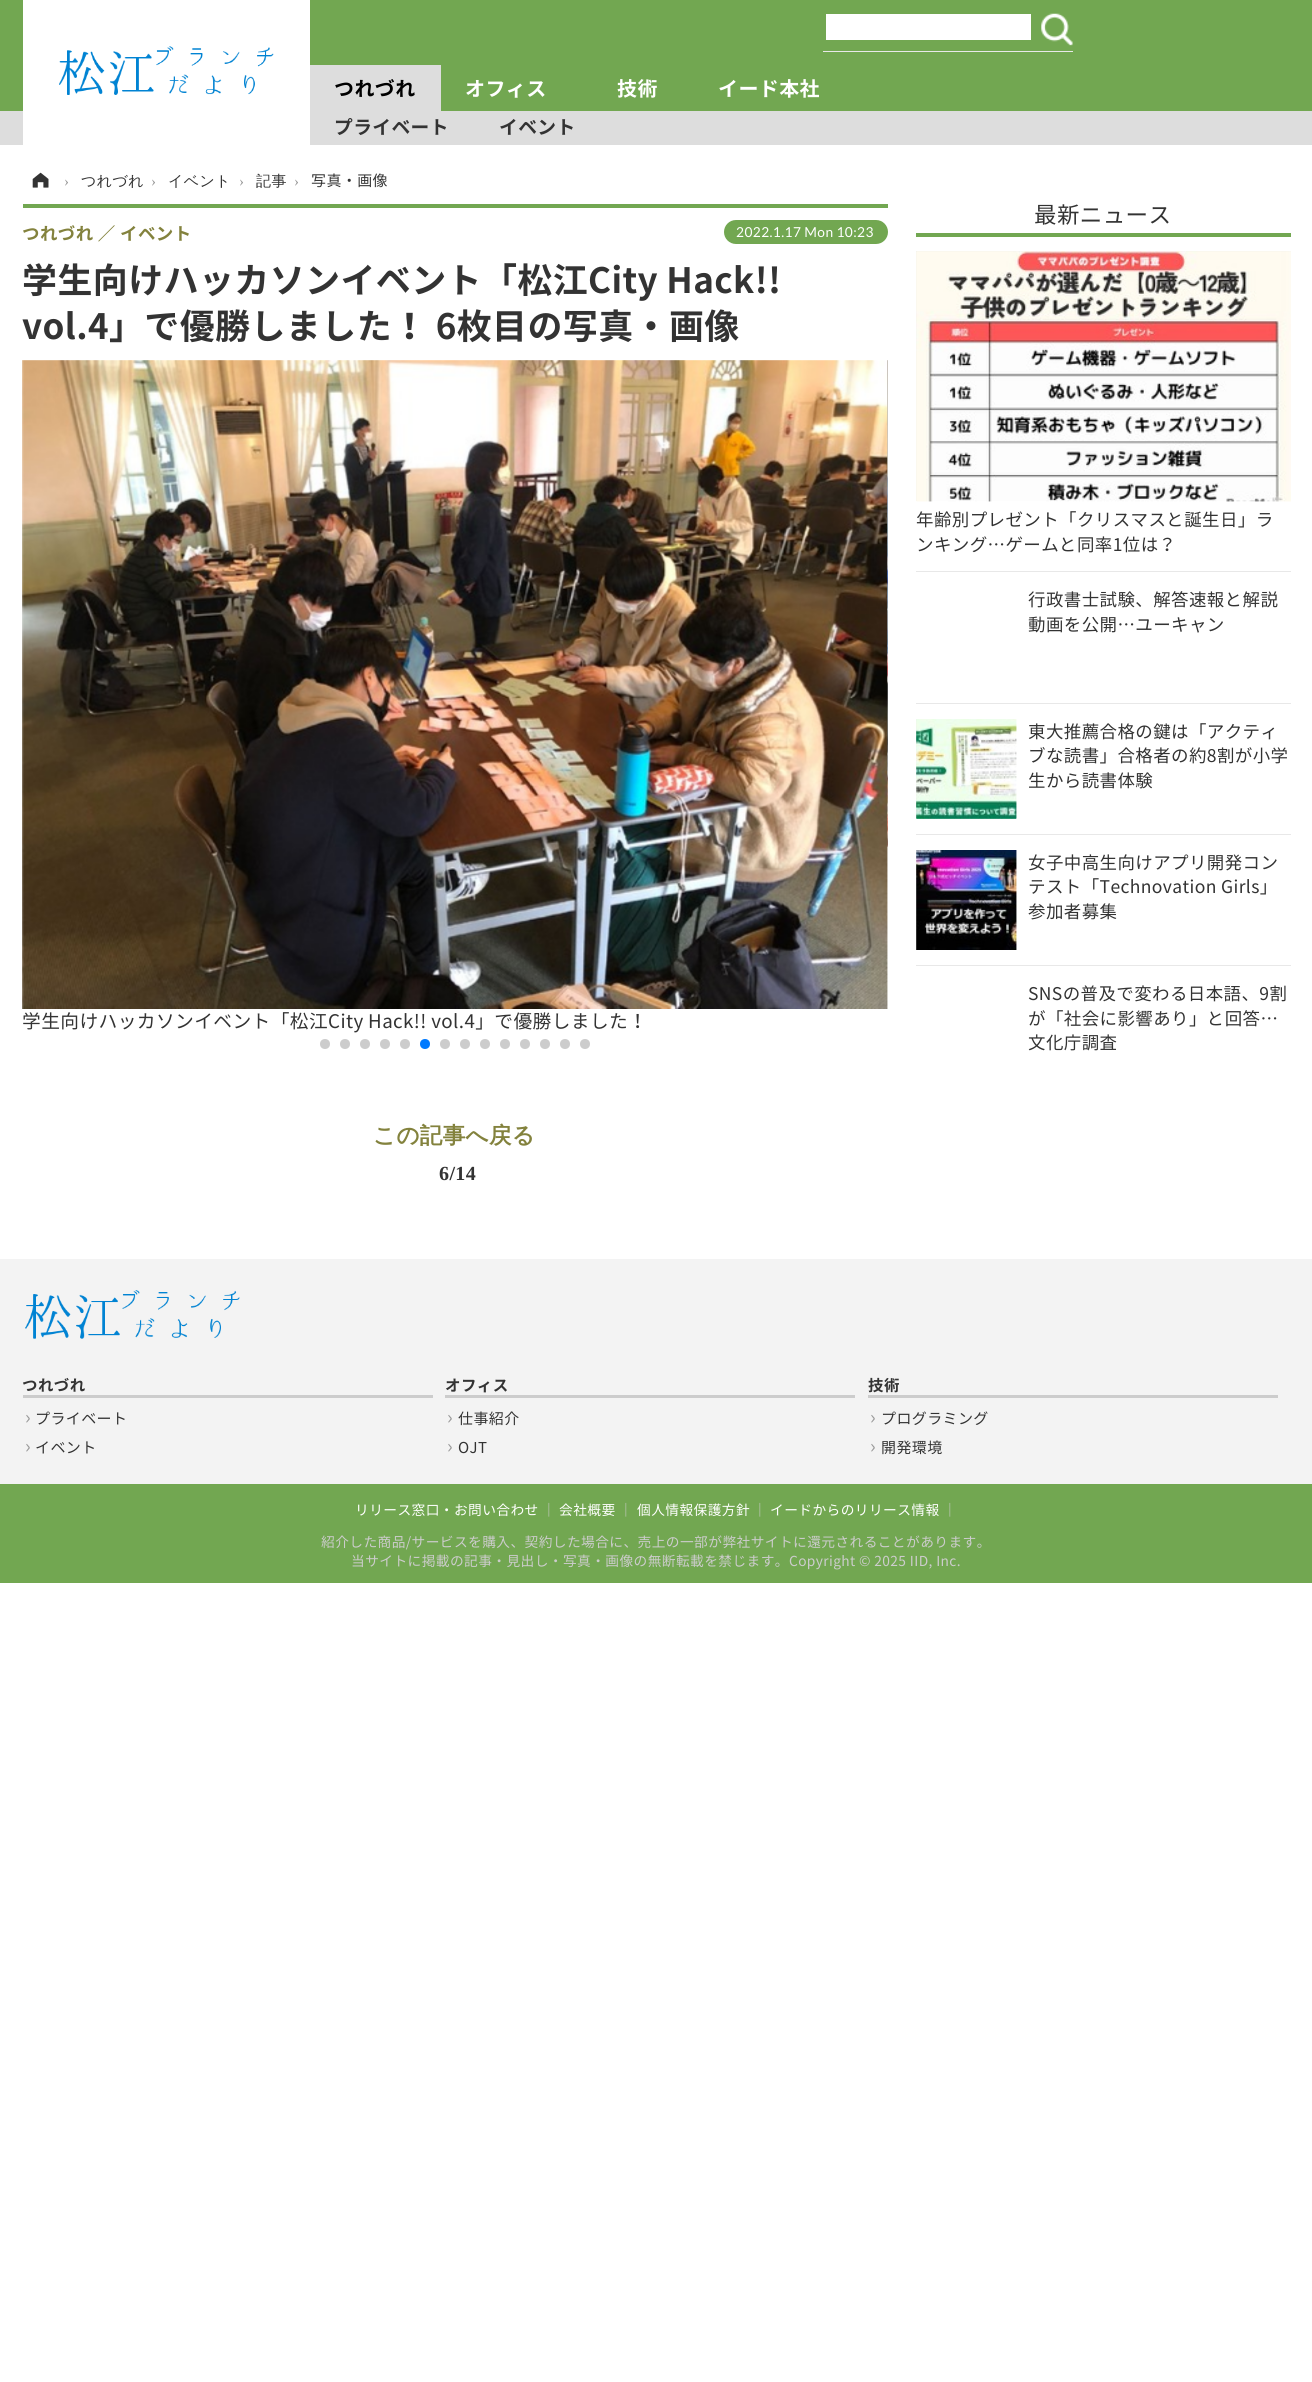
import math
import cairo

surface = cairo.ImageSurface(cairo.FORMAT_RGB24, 1312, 2382)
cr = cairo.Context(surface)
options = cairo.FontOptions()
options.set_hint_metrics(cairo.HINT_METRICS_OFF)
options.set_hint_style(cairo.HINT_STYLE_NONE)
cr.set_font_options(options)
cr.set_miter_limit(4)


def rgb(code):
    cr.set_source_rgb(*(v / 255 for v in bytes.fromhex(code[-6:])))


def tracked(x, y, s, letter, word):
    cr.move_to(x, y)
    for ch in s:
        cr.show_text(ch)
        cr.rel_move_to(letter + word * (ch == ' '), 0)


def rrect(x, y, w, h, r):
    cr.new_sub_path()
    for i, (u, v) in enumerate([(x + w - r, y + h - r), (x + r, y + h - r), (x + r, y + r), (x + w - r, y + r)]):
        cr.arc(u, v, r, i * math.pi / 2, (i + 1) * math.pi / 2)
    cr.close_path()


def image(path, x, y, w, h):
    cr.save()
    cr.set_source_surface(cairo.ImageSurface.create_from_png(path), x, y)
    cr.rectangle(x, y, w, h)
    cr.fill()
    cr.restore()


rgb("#ffffff")
cr.paint()
for x, y, w, h, color in [
    (0, 0, 1312, 111, "#72a751"),
    (823, 51, 250, 1, "#e8e8e8"),
    (826, 14, 205, 26, "#ffffff"),
]:
    rgb(color)
    cr.rectangle(x, y, w, h)
    cr.fill()
image("img/1.png", 1041, 13, 32, 33)
rgb("#dddddd")
cr.rectangle(0, 111, 1312, 34)
cr.fill()
rgb("#ffffff")
cr.rectangle(23, 0, 287, 145)
cr.fill()
image("img/2.png", 59, 46, 215, 49)
rgb("#dddddd")
cr.rectangle(310, 65, 131, 46)
cr.fill()
image("img/3.png", 32, 172, 17, 16)
rgb("#72a751")
cr.rectangle(23, 204, 865, 4)
cr.fill()
rrect(724, 220, 164, 24, 12)
cr.fill()
image("img/5.png", 22, 360, 866, 649)
image("img/4.png", 887, 360, 1, 487)
rgb("#cccccc")
cr.arc(325, 1044, 5, 0, 2 * math.pi)
cr.fill()
cr.arc(345, 1044, 5, 0, 2 * math.pi)
cr.fill()
cr.arc(365, 1044, 5, 0, 2 * math.pi)
cr.fill()
cr.arc(385, 1044, 5, 0, 2 * math.pi)
cr.fill()
cr.arc(405, 1044, 5, 0, 2 * math.pi)
cr.fill()
rgb("#007aff")
cr.arc(425, 1044, 5, 0, 2 * math.pi)
cr.fill()
rgb("#cccccc")
cr.arc(445, 1044, 5, 0, 2 * math.pi)
cr.fill()
cr.arc(465, 1044, 5, 0, 2 * math.pi)
cr.fill()
cr.arc(485, 1044, 5, 0, 2 * math.pi)
cr.fill()
cr.arc(505, 1044, 5, 0, 2 * math.pi)
cr.fill()
cr.arc(525, 1044, 5, 0, 2 * math.pi)
cr.fill()
cr.arc(545, 1044, 5, 0, 2 * math.pi)
cr.fill()
cr.arc(565, 1044, 5, 0, 2 * math.pi)
cr.fill()
cr.arc(585, 1044, 5, 0, 2 * math.pi)
cr.fill()
for x, y, w, h, color in [
    (916, 233, 375, 4, "#72a751"),
    (916, 571, 375, 1, "#e8e8e8"),
    (916, 251, 375, 250, "#eaeaea"),
]:
    rgb(color)
    cr.rectangle(x, y, w, h)
    cr.fill()
image("img/6.png", 916, 251, 375, 251)
image("img/7.png", 916, 251, 375, 251)
for x, y, w, h, color in [
    (916, 703, 375, 1, "#e8e8e8"),
    (916, 834, 375, 1, "#e8e8e8"),
    (916, 719, 100, 100, "#eaeaea"),
]:
    rgb(color)
    cr.rectangle(x, y, w, h)
    cr.fill()
image("img/8.png", 916, 719, 101, 100)
image("img/9.png", 916, 719, 101, 100)
rgb("#e8e8e8")
cr.rectangle(916, 965, 375, 1)
cr.fill()
image("img/10.png", 916, 850, 101, 100)
image("img/11.png", 916, 850, 101, 100)
rgb("#f3f3f3")
cr.rectangle(0, 1259, 1312, 225)
cr.fill()
image("img/12.png", 25, 1290, 215, 49)
for x, y, w, h, color in [
    (23, 1395, 410, 3, "#cccccc"),
    (445, 1395, 410, 3, "#cccccc"),
    (868, 1395, 410, 3, "#cccccc"),
    (0, 1484, 1312, 99, "#72a751"),
]:
    rgb(color)
    cr.rectangle(x, y, w, h)
    cr.fill()
cr.select_font_face("Noto Sans JP", cairo.FONT_SLANT_NORMAL, cairo.FONT_WEIGHT_BOLD)
cr.set_font_size(20)
rgb("#000000")
tracked(334, 96, "つれづれ", 0.38, 0)
cr.set_font_size(18.75)
rgb("#333333")
tracked(334, 134, "プライベート", 0.38, 0)
tracked(499, 134, "イベント", 0.38, 0)
cr.set_font_size(20)
rgb("#ffffff")
for x, y, s in [
    (617, 96, "技術"),
    (718, 96, "イード本社"),
    (465, 96, "オフィス"),
]:
    tracked(x, y, s, 0.38, 0)
cr.select_font_face("Liberation Serif")
cr.set_font_size(15)
rgb("#999999")
tracked(64, 186, "›", 0.38, 0)
cr.select_font_face("WenQuanYi Zen Hei Medium")
rgb("#333333")
tracked(81, 186, "つれづれ", 0.38, 0)
cr.select_font_face("Liberation Serif")
rgb("#999999")
tracked(151, 186, "›", 0.38, 0)
cr.select_font_face("WenQuanYi Zen Hei Medium")
rgb("#333333")
tracked(168, 186, "イベント", 0.38, 0)
cr.select_font_face("Liberation Serif")
rgb("#999999")
tracked(239, 186, "›", 0.38, 0)
cr.select_font_face("WenQuanYi Zen Hei Medium")
rgb("#333333")
tracked(256, 186, "記事", 0.38, 0)
cr.select_font_face("Liberation Serif")
rgb("#999999")
tracked(294, 186, "›", 0.38, 0)
cr.select_font_face("Noto Sans JP")
rgb("#333333")
tracked(311, 186, "写真・画像", 0.38, 0)
cr.select_font_face("Noto Sans JP", cairo.FONT_SLANT_NORMAL, cairo.FONT_WEIGHT_BOLD)
cr.set_font_size(17.5)
rgb("#83823d")
tracked(22, 240, "つれづれ ／ イベント", 0.38, 0)
cr.select_font_face("Lato")
cr.set_font_size(13.75)
rgb("#ffffff")
tracked(736, 237, "2022.1.17 Mon 10:23", 0.4, 0)
cr.select_font_face("Noto Sans JP", cairo.FONT_SLANT_NORMAL, cairo.FONT_WEIGHT_BOLD)
cr.set_font_size(35)
rgb("#333333")
tracked(22, 293, "学生向けハッカソンイベント「松江City Hack!!", 0.38, 0)
tracked(22, 339, "vol.4」で優勝しました！ 6枚目の写真・画像", 0.38, 0)
cr.select_font_face("Noto Sans JP")
cr.set_font_size(18.75)
tracked(22, 1028, "学生向けハッカソンイベント「松江City Hack!! vol.4」で優勝しました！", 0.38, 0)
cr.select_font_face("WenQuanYi Zen Hei", cairo.FONT_SLANT_NORMAL, cairo.FONT_WEIGHT_BOLD)
cr.set_font_size(22.5)
rgb("#83823d")
tracked(373, 1143, "この記事へ戻る", 0.38, 0)
cr.select_font_face("Liberation Serif", cairo.FONT_SLANT_NORMAL, cairo.FONT_WEIGHT_BOLD)
cr.set_font_size(20)
rgb("#333333")
tracked(439, 1180, "6/14", 0.38, 0)
cr.select_font_face("Noto Sans JP")
cr.set_font_size(22.5)
tracked(1034, 223, "最新ニュース", 0.38, 0)
cr.set_font_size(17.5)
for x, y, s in [
    (916, 526, "年齢別プレゼント「クリスマスと誕生日」ラ"),
    (916, 551, "ンキング…ゲームと同率1位は？"),
    (1028, 606, "行政書士試験、解答速報と解説"),
    (1028, 631, "動画を公開…ユーキャン"),
    (1028, 738, "東大推薦合格の鍵は「アクティ"),
    (1028, 762, "ブな読書」合格者の約8割が小学"),
    (1028, 787, "生から読書体験"),
    (1028, 869, "女子中高生向けアプリ開発コン"),
    (1028, 893, "テスト「Technovation Girls」"),
    (1028, 918, "参加者募集"),
    (1028, 1000, "SNSの普及で変わる日本語、9割"),
    (1028, 1025, "が「社会に影響あり」と回答…"),
    (1028, 1049, "文化庁調査"),
]:
    tracked(x, y, s, 0.38, 0)
cr.select_font_face("Noto Sans JP", cairo.FONT_SLANT_NORMAL, cairo.FONT_WEIGHT_BOLD)
cr.set_font_size(15.5)
tracked(22, 1391, "つれづれ", 0.38, 0)
cr.select_font_face("Noto Sans JP")
cr.set_font_size(18.75)
rgb("#999999")
tracked(25, 1424, "›", 0.38, 0)
cr.set_font_size(15)
rgb("#333333")
tracked(35, 1424, "プライベート", 0.38, 0)
cr.set_font_size(18.75)
rgb("#999999")
tracked(25, 1453, "›", 0.38, 0)
cr.set_font_size(15)
rgb("#333333")
tracked(35, 1453, "イベント", 0.38, 0)
cr.select_font_face("Noto Sans JP", cairo.FONT_SLANT_NORMAL, cairo.FONT_WEIGHT_BOLD)
cr.set_font_size(15.5)
tracked(445, 1391, "オフィス", 0.38, 0)
cr.select_font_face("Noto Sans JP")
cr.set_font_size(18.75)
rgb("#999999")
tracked(447, 1424, "›", 0.38, 0)
cr.set_font_size(15)
rgb("#333333")
tracked(458, 1424, "仕事紹介", 0.38, 0)
cr.set_font_size(18.75)
rgb("#999999")
tracked(447, 1453, "›", 0.38, 0)
cr.set_font_size(15)
rgb("#333333")
tracked(458, 1453, "OJT", 0.38, 0)
cr.select_font_face("Noto Sans JP", cairo.FONT_SLANT_NORMAL, cairo.FONT_WEIGHT_BOLD)
cr.set_font_size(15.5)
tracked(868, 1391, "技術", 0.38, 0)
cr.select_font_face("Noto Sans JP")
cr.set_font_size(18.75)
rgb("#999999")
tracked(870, 1424, "›", 0.38, 0)
cr.set_font_size(15)
rgb("#333333")
tracked(881, 1424, "プログラミング", 0.38, 0)
cr.set_font_size(18.75)
rgb("#999999")
tracked(870, 1453, "›", 0.38, 0)
cr.set_font_size(15)
rgb("#333333")
tracked(881, 1453, "開発環境", 0.38, 0)
cr.set_font_size(13.75)
rgb("#ffffff")
tracked(355, 1515, "リリース窓口・お問い合わせ", 0.38, 0)
rgb("#cccccc")
tracked(542, 1515, "｜", 0.38, 0)
rgb("#ffffff")
tracked(559, 1515, "会社概要", 0.38, 0)
rgb("#cccccc")
tracked(619, 1515, "｜", 0.38, 0)
rgb("#ffffff")
tracked(637, 1515, "個人情報保護方針", 0.38, 0)
rgb("#cccccc")
tracked(753, 1515, "｜", 0.38, 0)
rgb("#ffffff")
tracked(770, 1515, "イードからのリリース情報", 0.38, 0)
rgb("#cccccc")
for x, y, s in [
    (943, 1515, "｜"),
    (321, 1547, "紹介した商品/サービスを購入、契約した場合に、売上の一部が弊社サイトに還元されることがあります。"),
    (351, 1566, "当サイトに掲載の記事・見出し・写真・画像の無断転載を禁じます。Copyright © 2025 IID, Inc."),
]:
    tracked(x, y, s, 0.38, 0)
surface.write_to_png("page.png")
